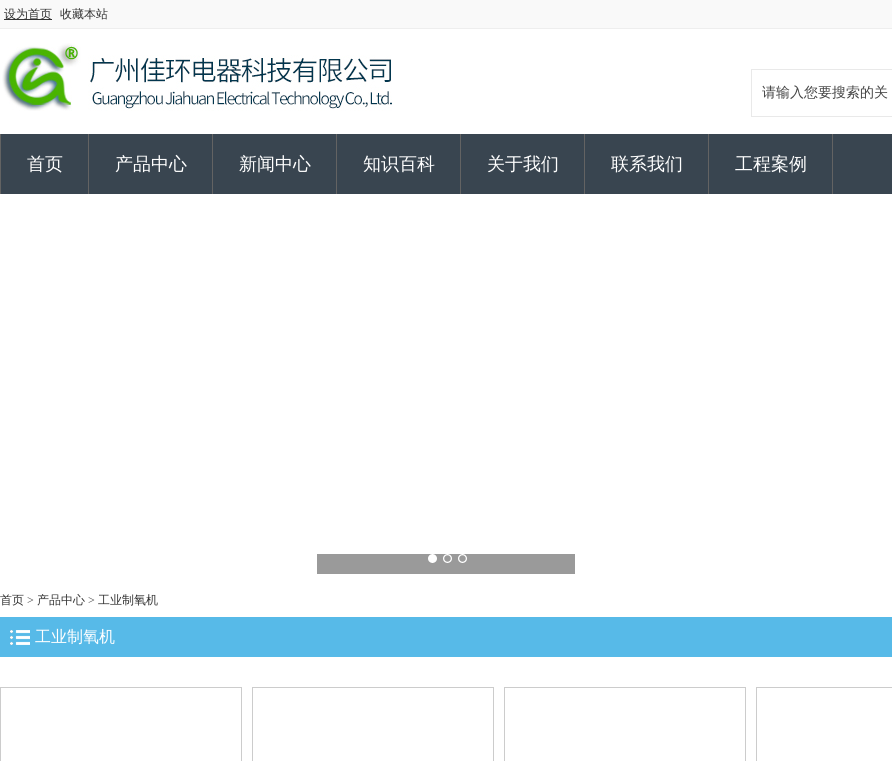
import math
import cairo

surface = cairo.ImageSurface(cairo.FORMAT_RGB24, 892, 761)
cr = cairo.Context(surface)
options = cairo.FontOptions()
options.set_hint_metrics(cairo.HINT_METRICS_OFF)
options.set_hint_style(cairo.HINT_STYLE_NONE)
cr.set_font_options(options)
cr.set_miter_limit(4)


def rgb(code):
    cr.set_source_rgb(*(v / 255 for v in bytes.fromhex(code[-6:])))


def image(path, x, y, w, h):
    cr.save()
    cr.set_source_surface(cairo.ImageSurface.create_from_png(path), x, y)
    cr.rectangle(x, y, w, h)
    cr.fill()
    cr.restore()


rgb("#ffffff")
cr.paint()
for x, y, w, h, color in [
    (0, 0, 892, 28, "#f9f9f9"),
    (0, 28, 892, 1, "#eeeeee"),
    (4, 19, 48, 1, "#333333"),
]:
    rgb(color)
    cr.rectangle(x, y, w, h)
    cr.fill()
image("img/1.png", 2, 43, 390, 68)
for x, y, w, h, color in [
    (751, 69, 141, 1, "#e9e9e9"),
    (751, 116, 141, 1, "#e9e9e9"),
    (751, 69, 1, 48, "#e9e9e9"),
    (1, 134, 891, 60, "#394550"),
    (0, 134, 1, 60, "#636363"),
    (88, 134, 1, 60, "#636363"),
    (212, 134, 1, 60, "#636363"),
    (336, 134, 1, 60, "#636363"),
    (460, 134, 1, 60, "#636363"),
    (584, 134, 1, 60, "#636363"),
    (708, 134, 1, 60, "#636363"),
    (832, 134, 1, 60, "#636363"),
    (317, 554, 258, 20, "#9a9a9a"),
]:
    rgb(color)
    cr.rectangle(x, y, w, h)
    cr.fill()
image("img/2.png", 428, 554, 9, 9)
image("img/3.png", 443, 554, 9, 9)
image("img/3.png", 458, 554, 9, 9)
rgb("#57bae8")
cr.rectangle(0, 617, 892, 40)
cr.fill()
image("img/4.png", 10, 630, 20, 15)
cr.rectangle(0.5, 687.5, 241, 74)
rgb("#cccccc")
cr.set_line_width(1)
cr.stroke()
cr.rectangle(252.5, 687.5, 241, 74)
cr.stroke()
cr.rectangle(504.5, 687.5, 241, 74)
cr.stroke()
cr.rectangle(756.5, 687.5, 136, 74)
cr.stroke()
cr.select_font_face("WenQuanYi Zen Hei Medium")
cr.set_font_size(12)
rgb("#333333")
cr.move_to(4, 18)
cr.show_text("设为首页")
cr.move_to(60, 18)
cr.show_text("收藏本站")
cr.set_font_size(14)
rgb("#444444")
cr.move_to(762, 97)
cr.show_text("请输入您要搜索的关")
cr.set_font_size(18)
rgb("#ffffff")
for x, y, s in [
    (27, 170, "首页"),
    (115, 170, "产品中心"),
    (239, 170, "新闻中心"),
    (363, 170, "知识百科"),
    (487, 170, "关于我们"),
    (611, 170, "联系我们"),
    (735, 170, "工程案例"),
]:
    cr.move_to(x, y)
    cr.show_text(s)
cr.set_font_size(12)
rgb("#333333")
cr.move_to(0, 604)
cr.show_text("首页")
cr.select_font_face("Liberation Serif")
rgb("#444444")
cr.move_to(27, 604)
cr.show_text(">")
cr.select_font_face("WenQuanYi Zen Hei Medium")
rgb("#333333")
cr.move_to(37, 604)
cr.show_text("产品中心")
cr.select_font_face("Liberation Serif")
rgb("#444444")
cr.move_to(88, 604)
cr.show_text(">")
cr.select_font_face("WenQuanYi Zen Hei Medium")
rgb("#333333")
cr.move_to(98, 604)
cr.show_text("工业制氧机")
cr.set_font_size(16)
rgb("#ffffff")
cr.move_to(35, 642)
cr.show_text("工业制氧机")
surface.write_to_png("page.png")
